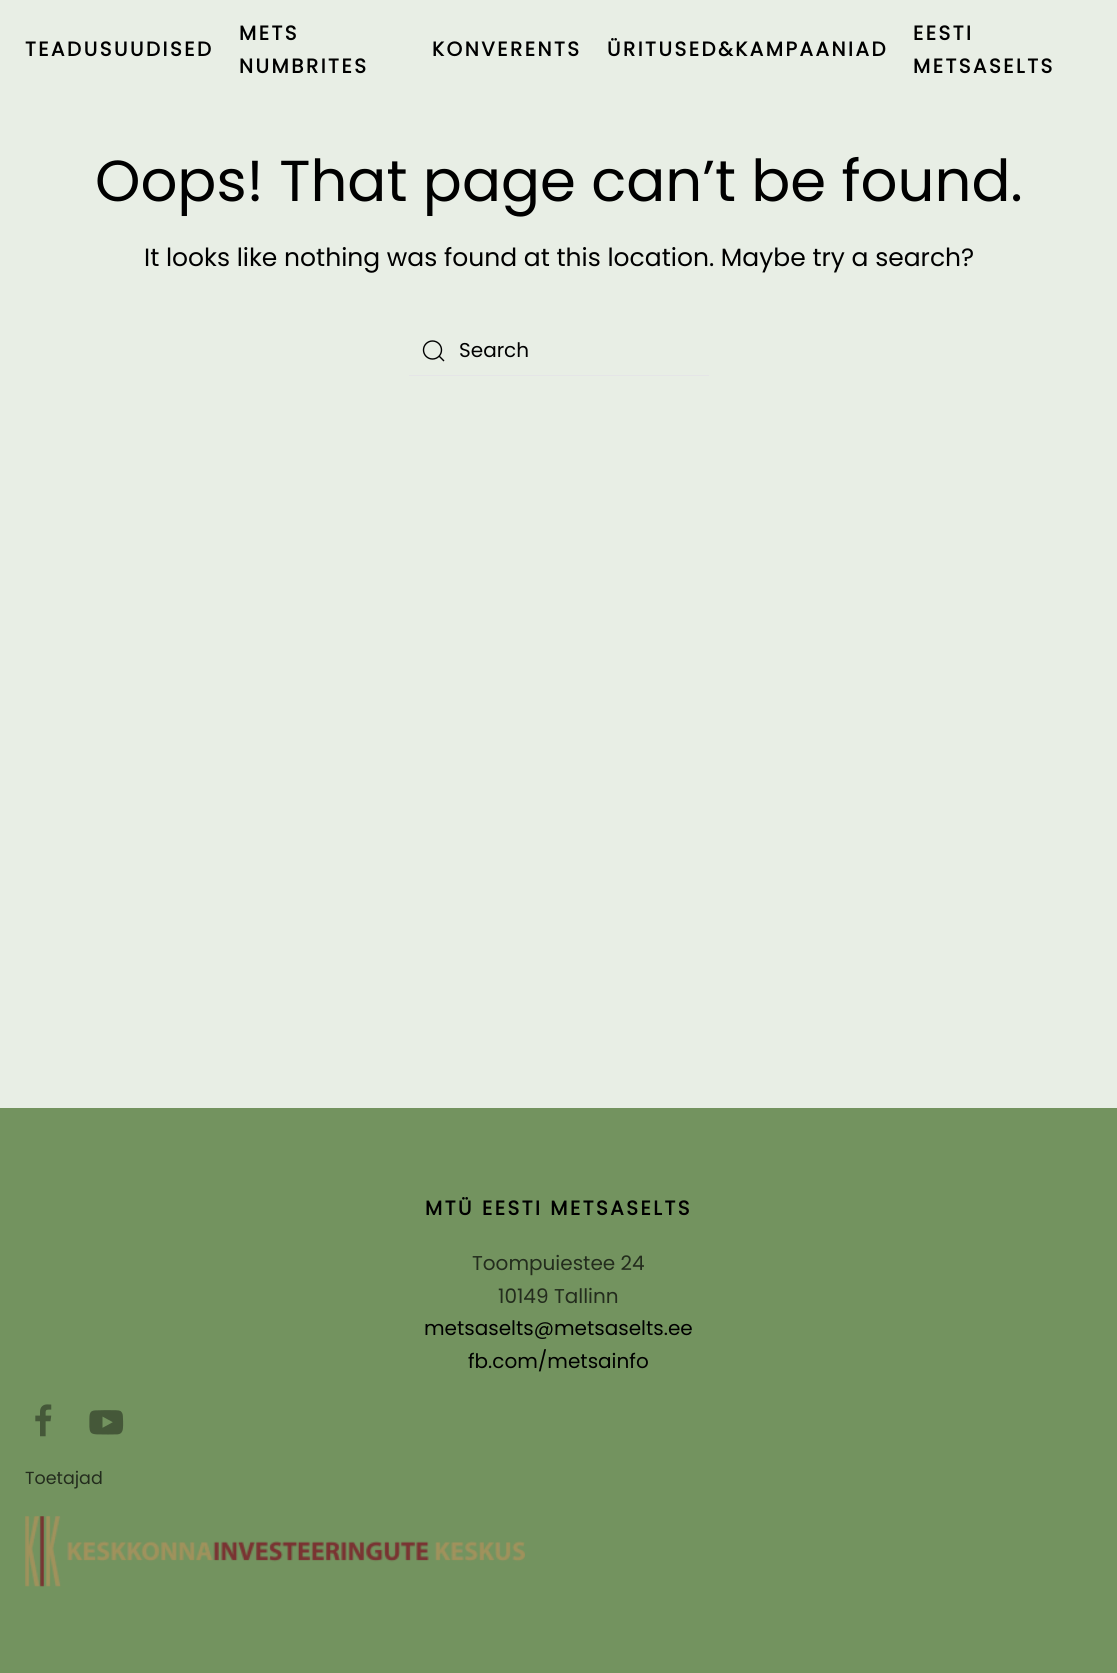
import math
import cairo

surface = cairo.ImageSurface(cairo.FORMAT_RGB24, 1117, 1673)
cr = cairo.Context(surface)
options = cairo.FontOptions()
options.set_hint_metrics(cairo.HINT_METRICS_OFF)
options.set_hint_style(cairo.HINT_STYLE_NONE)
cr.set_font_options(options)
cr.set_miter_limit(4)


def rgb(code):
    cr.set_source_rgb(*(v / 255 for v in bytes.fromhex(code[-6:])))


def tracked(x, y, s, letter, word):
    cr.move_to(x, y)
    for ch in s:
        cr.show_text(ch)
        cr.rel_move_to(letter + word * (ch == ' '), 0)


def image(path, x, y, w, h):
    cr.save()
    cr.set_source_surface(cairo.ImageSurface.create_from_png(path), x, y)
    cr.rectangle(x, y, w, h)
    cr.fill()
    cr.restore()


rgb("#e8eee5")
cr.paint()
cr.arc(432.5, 350, 9, 0, 2 * math.pi)
rgb("#000000")
cr.set_line_width(1.4)
cr.stroke()
cr.new_path()
cr.move_to(439, 356)
cr.line_to(444, 361)
cr.close_path()
cr.stroke()
rgb("#e5e5e7")
cr.rectangle(409, 375, 300, 1)
cr.fill()
rgb("#73935f")
cr.rectangle(0, 1108, 1117, 565)
cr.fill()
image("img/1.png", 35, 1404, 17, 33)
image("img/2.png", 89, 1410, 35, 25)
image("img/3.png", 25, 1516, 500, 71)
cr.select_font_face("Poppins", cairo.FONT_SLANT_NORMAL, cairo.FONT_WEIGHT_BOLD)
cr.set_font_size(20)
rgb("#000000")
for x, y, s in [
    (25, 56, "TEADUSUUDISED"),
    (239, 40, "METS"),
    (239, 73, "NUMBRITES"),
    (432, 56, "KONVERENTS"),
    (607, 56, "ÜRITUSED&KAMPAANIAD"),
    (913, 40, "EESTI"),
    (913, 73, "METSASELTS"),
]:
    tracked(x, y, s, 2.5, 0)
cr.select_font_face("Poppins")
cr.set_font_size(57.75)
cr.move_to(95, 201)
cr.show_text("Oops! That page can’t be found.")
cr.set_font_size(25)
cr.move_to(144, 266)
cr.show_text("It looks like nothing was found at this location. Maybe try a search?")
cr.set_font_size(20)
cr.move_to(459, 357)
cr.show_text("Search")
cr.select_font_face("Poppins", cairo.FONT_SLANT_NORMAL, cairo.FONT_WEIGHT_BOLD)
tracked(425, 1215, "MTÜ EESTI METSASELTS", 2.5, 0)
cr.select_font_face("Poppins")
rgb("#232c1d")
cr.move_to(472, 1270)
cr.show_text("Toompuiestee 24")
cr.move_to(498, 1303)
cr.show_text("10149 Tallinn")
rgb("#000000")
cr.move_to(424, 1335)
cr.show_text("metsaselts@metsaselts.ee")
cr.move_to(468, 1368)
cr.show_text("fb.com/metsainfo")
cr.set_font_size(17.5)
rgb("#232c1d")
cr.move_to(25, 1484)
cr.show_text("Toetajad")
surface.write_to_png("page.png")
